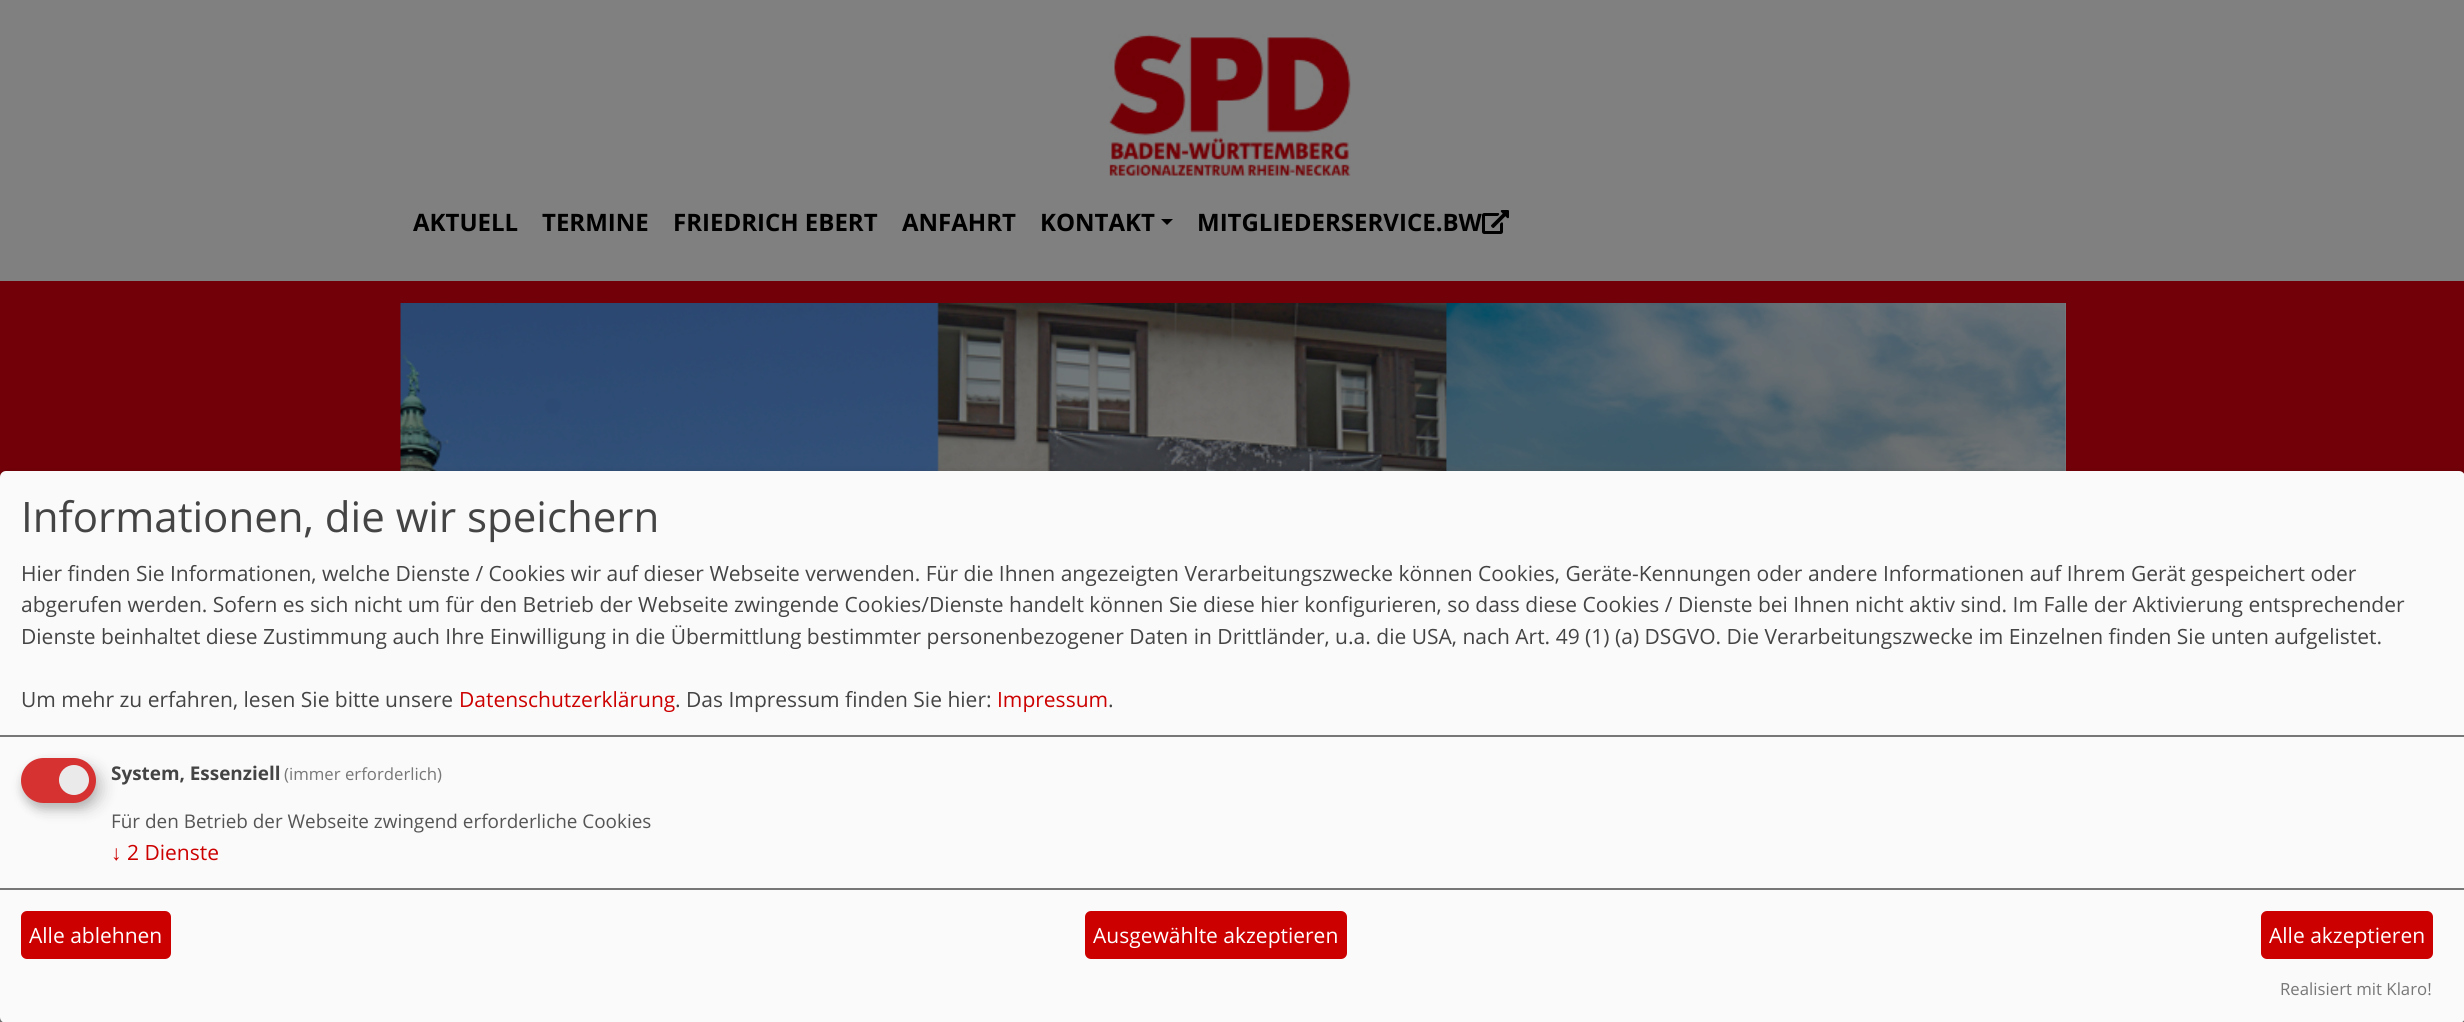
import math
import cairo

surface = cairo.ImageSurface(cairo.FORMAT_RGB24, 2464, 1022)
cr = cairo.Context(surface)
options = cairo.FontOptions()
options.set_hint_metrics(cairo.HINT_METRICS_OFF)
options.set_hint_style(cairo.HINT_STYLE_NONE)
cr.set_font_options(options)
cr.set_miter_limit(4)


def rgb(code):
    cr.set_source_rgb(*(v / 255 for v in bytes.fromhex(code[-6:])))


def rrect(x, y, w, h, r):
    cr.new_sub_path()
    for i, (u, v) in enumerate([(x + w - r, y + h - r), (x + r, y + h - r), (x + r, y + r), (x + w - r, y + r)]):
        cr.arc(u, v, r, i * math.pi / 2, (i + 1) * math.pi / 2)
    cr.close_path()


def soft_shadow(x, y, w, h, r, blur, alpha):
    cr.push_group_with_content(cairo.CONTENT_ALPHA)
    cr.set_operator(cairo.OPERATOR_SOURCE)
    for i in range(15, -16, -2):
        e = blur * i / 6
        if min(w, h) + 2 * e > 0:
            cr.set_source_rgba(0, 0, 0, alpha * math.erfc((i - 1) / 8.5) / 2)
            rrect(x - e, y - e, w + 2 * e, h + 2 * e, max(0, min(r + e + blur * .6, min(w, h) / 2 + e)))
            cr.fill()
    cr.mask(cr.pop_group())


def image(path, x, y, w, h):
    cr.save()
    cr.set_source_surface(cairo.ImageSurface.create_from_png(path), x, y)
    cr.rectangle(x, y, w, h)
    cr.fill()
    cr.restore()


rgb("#808080")
cr.paint()
image("img/1.png", 1109, 34, 242, 142)
rgb("#000000")
cr.new_path()
cr.move_to(1161, 219)
cr.line_to(1173, 219)
cr.line_to(1167, 225)
cr.close_path()
cr.fill()
image("img/2.png", 1482, 210, 27, 24)
rgb("#720008")
cr.rectangle(0, 281, 2464, 196)
cr.fill()
rgb("#808080")
cr.rectangle(2065, 303, 1, 168)
cr.fill()
image("img/3.png", 400, 303, 1666, 168)
rgb("#000000")
soft_shadow(8, 479, 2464, 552, 6, 7.5, 0.19)
soft_shadow(0, 477, 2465, 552, 6, 4.5, 0.2)
rgb("#fafafa")
rrect(0, 471, 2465, 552, 6)
cr.fill()
rgb("#777777")
cr.rectangle(0, 735, 2464, 2)
cr.fill()
rgb("#000000")
soft_shadow(29, 765, 75, 45, 22.5, 7.5, 0.15)
rgb("#323232")
soft_shadow(21, 764, 75, 45, 22.5, 4.5, 0.2)
rgb("#d63232")
rrect(21, 758, 75, 45, 22.5)
cr.fill()
rgb("#eaeaea")
cr.arc(74, 780, 15, 0, 2 * math.pi)
cr.fill()
rgb("#777777")
cr.rectangle(0, 888, 2464, 2)
cr.fill()
rgb("#cd0000")
rrect(21, 911, 150, 48, 6)
cr.fill()
rrect(1085, 911, 262, 48, 6)
cr.fill()
rrect(2261, 911, 172, 48, 6)
cr.fill()
cr.select_font_face("Open Sans", cairo.FONT_SLANT_NORMAL, cairo.FONT_WEIGHT_BOLD)
cr.set_font_size(24)
rgb("#000000")
for x, y, s in [
    (413, 231, "AKTUELL"),
    (542, 231, "TERMINE"),
    (673, 231, "FRIEDRICH EBERT"),
    (902, 231, "ANFAHRT"),
    (1040, 231, "KONTAKT"),
    (1197, 231, "MITGLIEDERSERVICE.BW"),
]:
    cr.move_to(x, y)
    cr.show_text(s)
cr.select_font_face("Open Sans")
cr.set_font_size(42)
rgb("#444444")
cr.move_to(21, 532)
cr.show_text("Informationen, die wir speichern")
cr.set_font_size(21)
for x, y, s in [
    (21, 581, "Hier finden Sie Informationen, welche Dienste / Cookies wir auf dieser Webseite verwenden. Für die Ihnen angezeigten Verarbeitungszwecke können Cookies, Geräte-Kennungen oder andere Informationen auf Ihrem Gerät gespeichert oder"),
    (21, 612, "abgerufen werden. Sofern es sich nicht um für den Betrieb der Webseite zwingende Cookies/Dienste handelt können Sie diese hier konfigurieren, so dass diese Cookies / Dienste bei Ihnen nicht aktiv sind. Im Falle der Aktivierung entsprechender"),
    (21, 644, "Dienste beinhaltet diese Zustimmung auch Ihre Einwilligung in die Übermittlung bestimmter personenbezogener Daten in Drittländer, u.a. die USA, nach Art. 49 (1) (a) DSGVO. Die Verarbeitungszwecke im Einzelnen finden Sie unten aufgelistet."),
    (21, 707, "Um mehr zu erfahren, lesen Sie bitte unsere"),
]:
    cr.move_to(x, y)
    cr.show_text(s)
rgb("#cd0000")
cr.move_to(459, 707)
cr.show_text("Datenschutzerklärung")
rgb("#444444")
cr.move_to(675, 707)
cr.show_text(". Das Impressum finden Sie hier:")
rgb("#cd0000")
cr.move_to(997, 707)
cr.show_text("Impressum")
rgb("#444444")
cr.move_to(1108, 707)
cr.show_text(".")
cr.select_font_face("Open Sans", cairo.FONT_SLANT_NORMAL, cairo.FONT_WEIGHT_BOLD)
cr.set_font_size(18.9)
cr.move_to(111, 780)
cr.show_text("System, Essenziell")
cr.select_font_face("Open Sans")
cr.set_font_size(16.75)
rgb("#777777")
cr.move_to(284, 780)
cr.show_text("(immer erforderlich)")
cr.set_font_size(18.9)
rgb("#555555")
cr.move_to(111, 828)
cr.show_text("Für den Betrieb der Webseite zwingend erforderliche Cookies")
cr.select_font_face("Liberation Sans")
cr.set_font_size(21)
rgb("#cd0000")
cr.move_to(111, 860)
cr.show_text("↓")
cr.select_font_face("Open Sans")
cr.move_to(127, 860)
cr.show_text("2 Dienste")
rgb("#ffffff")
for x, y, s in [
    (29, 943, "Alle ablehnen"),
    (1093, 943, "Ausgewählte akzeptieren"),
    (2269, 943, "Alle akzeptieren"),
]:
    cr.move_to(x, y)
    cr.show_text(s)
cr.set_font_size(16.75)
rgb("#777777")
cr.move_to(2280, 995)
cr.show_text("Realisiert mit Klaro!")
surface.write_to_png("page.png")
